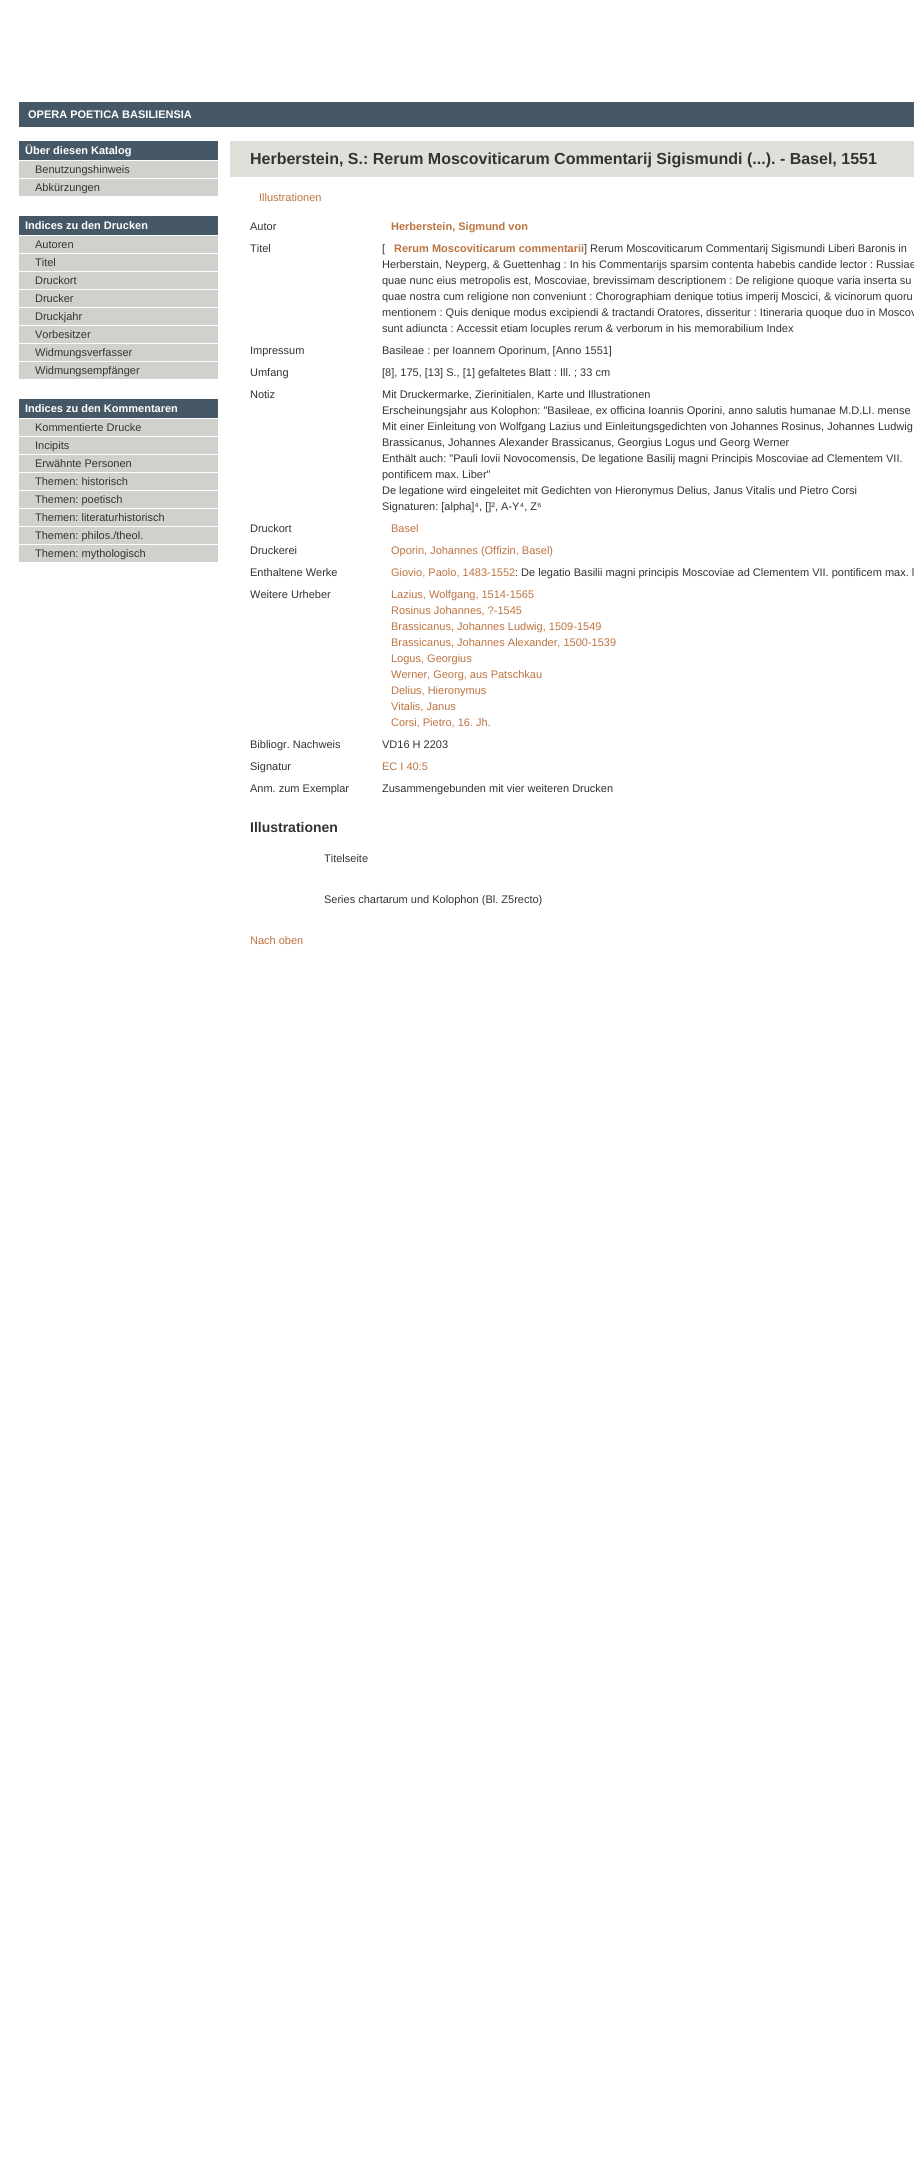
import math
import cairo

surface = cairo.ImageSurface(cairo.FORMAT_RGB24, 914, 2173)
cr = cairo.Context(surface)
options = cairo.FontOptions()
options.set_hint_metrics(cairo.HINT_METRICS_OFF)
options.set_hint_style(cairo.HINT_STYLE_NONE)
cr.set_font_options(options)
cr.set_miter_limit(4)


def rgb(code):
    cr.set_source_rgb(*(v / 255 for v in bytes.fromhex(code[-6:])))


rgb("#ffffff")
cr.paint()
for x, y, w, h, color in [
    (19, 102, 895, 25, "#465765"),
    (19, 141, 199, 19, "#465765"),
    (19, 161, 199, 17, "#d0d1cc"),
    (19, 179, 199, 17, "#d0d1cc"),
    (19, 216, 199, 19, "#465765"),
    (19, 236, 199, 17, "#d0d1cc"),
    (19, 254, 199, 17, "#d0d1cc"),
    (19, 272, 199, 17, "#d0d1cc"),
    (19, 290, 199, 17, "#d0d1cc"),
    (19, 308, 199, 17, "#d0d1cc"),
    (19, 326, 199, 17, "#d0d1cc"),
    (19, 344, 199, 17, "#d0d1cc"),
    (19, 362, 199, 17, "#d0d1cc"),
    (19, 399, 199, 19, "#465765"),
    (19, 419, 199, 17, "#d0d1cc"),
    (19, 437, 199, 17, "#d0d1cc"),
    (19, 455, 199, 17, "#d0d1cc"),
    (19, 473, 199, 17, "#d0d1cc"),
    (19, 491, 199, 17, "#d0d1cc"),
    (19, 509, 199, 17, "#d0d1cc"),
    (19, 527, 199, 17, "#d0d1cc"),
    (19, 545, 199, 17, "#d0d1cc"),
    (230, 141, 684, 36, "#e0e0db"),
]:
    rgb(color)
    cr.rectangle(x, y, w, h)
    cr.fill()
cr.select_font_face("Liberation Sans", cairo.FONT_SLANT_NORMAL, cairo.FONT_WEIGHT_BOLD)
cr.set_font_size(11)
rgb("#ffffff")
cr.move_to(28, 118)
cr.show_text("OPERA POETICA BASILIENSIA")
cr.move_to(25, 154)
cr.show_text("Über diesen Katalog")
cr.select_font_face("Liberation Sans")
rgb("#333333")
cr.move_to(35, 173)
cr.show_text("Benutzungshinweis")
cr.move_to(35, 191)
cr.show_text("Abkürzungen")
cr.select_font_face("Liberation Sans", cairo.FONT_SLANT_NORMAL, cairo.FONT_WEIGHT_BOLD)
rgb("#ffffff")
cr.move_to(25, 229)
cr.show_text("Indices zu den Drucken")
cr.select_font_face("Liberation Sans")
rgb("#333333")
for x, y, s in [
    (35, 248, "Autoren"),
    (35, 266, "Titel"),
    (35, 284, "Druckort"),
    (35, 302, "Drucker"),
    (35, 320, "Druckjahr"),
    (35, 338, "Vorbesitzer"),
    (35, 356, "Widmungsverfasser"),
    (35, 374, "Widmungsempfänger"),
]:
    cr.move_to(x, y)
    cr.show_text(s)
cr.select_font_face("Liberation Sans", cairo.FONT_SLANT_NORMAL, cairo.FONT_WEIGHT_BOLD)
rgb("#ffffff")
cr.move_to(25, 412)
cr.show_text("Indices zu den Kommentaren")
cr.select_font_face("Liberation Sans")
rgb("#333333")
for x, y, s in [
    (35, 431, "Kommentierte Drucke"),
    (35, 449, "Incipits"),
    (35, 467, "Erwähnte Personen"),
    (35, 485, "Themen: historisch"),
    (35, 503, "Themen: poetisch"),
    (35, 521, "Themen: literaturhistorisch"),
    (35, 539, "Themen: philos./theol."),
    (35, 557, "Themen: mythologisch"),
]:
    cr.move_to(x, y)
    cr.show_text(s)
cr.select_font_face("Liberation Sans", cairo.FONT_SLANT_NORMAL, cairo.FONT_WEIGHT_BOLD)
cr.set_font_size(16)
cr.move_to(250, 164)
cr.show_text("Herberstein, S.: Rerum Moscoviticarum Commentarij Sigismundi (...). - Basel, 1551")
cr.select_font_face("Liberation Sans")
cr.set_font_size(11)
rgb("#bc7340")
cr.move_to(259, 201)
cr.show_text("Illustrationen")
rgb("#333333")
cr.move_to(250, 230)
cr.show_text("Autor")
cr.select_font_face("Liberation Sans", cairo.FONT_SLANT_NORMAL, cairo.FONT_WEIGHT_BOLD)
rgb("#bc7340")
cr.move_to(391, 230)
cr.show_text("Herberstein, Sigmund von")
cr.select_font_face("Liberation Sans")
rgb("#333333")
cr.move_to(250, 252)
cr.show_text("Titel")
cr.move_to(382, 252)
cr.show_text("[")
cr.select_font_face("Liberation Sans", cairo.FONT_SLANT_NORMAL, cairo.FONT_WEIGHT_BOLD)
rgb("#bc7340")
cr.move_to(394, 252)
cr.show_text("Rerum Moscoviticarum commentarii")
cr.select_font_face("Liberation Sans")
rgb("#333333")
for x, y, s in [
    (584, 252, "] Rerum Moscoviticarum Commentarij Sigismundi Liberi Baronis in"),
    (382, 268, "Herberstain, Neyperg, & Guettenhag : In his Commentarijs sparsim contenta habebis candide lector : Russiae"),
    (382, 284, "quae nunc eius metropolis est, Moscoviae, brevissimam descriptionem : De religione quoque varia inserta su"),
    (382, 300, "quae nostra cum religione non conveniunt : Chorographiam denique totius imperij Moscici, & vicinorum quoru"),
    (382, 316, "mentionem : Quis denique modus excipiendi & tractandi Oratores, disseritur : Itineraria quoque duo in Moscov"),
    (382, 332, "sunt adiuncta : Accessit etiam locuples rerum & verborum in his memorabilium Index"),
    (250, 354, "Impressum"),
    (382, 354, "Basileae : per Ioannem Oporinum, [Anno 1551]"),
    (250, 376, "Umfang"),
    (382, 376, "[8], 175, [13] S., [1] gefaltetes Blatt : Ill. ; 33 cm"),
    (250, 398, "Notiz"),
    (382, 398, "Mit Druckermarke, Zierinitialen, Karte und Illustrationen"),
    (382, 414, "Erscheinungsjahr aus Kolophon: \"Basileae, ex officina Ioannis Oporini, anno salutis humanae M.D.LI. mense"),
    (382, 430, "Mit einer Einleitung von Wolfgang Lazius und Einleitungsgedichten von Johannes Rosinus, Johannes Ludwig"),
    (382, 446, "Brassicanus, Johannes Alexander Brassicanus, Georgius Logus und Georg Werner"),
    (382, 462, "Enthält auch: \"Pauli Iovii Novocomensis, De legatione Basilij magni Principis Moscoviae ad Clementem VII."),
    (382, 478, "pontificem max. Liber\""),
    (382, 494, "De legatione wird eingeleitet mit Gedichten von Hieronymus Delius, Janus Vitalis und Pietro Corsi"),
    (382, 510, "Signaturen: [alpha]⁴, []², A-Y⁴, Z⁶"),
    (250, 532, "Druckort"),
]:
    cr.move_to(x, y)
    cr.show_text(s)
rgb("#bc7340")
cr.move_to(391, 532)
cr.show_text("Basel")
rgb("#333333")
cr.move_to(250, 554)
cr.show_text("Druckerei")
rgb("#bc7340")
cr.move_to(391, 554)
cr.show_text("Oporin, Johannes (Offizin, Basel)")
rgb("#333333")
cr.move_to(250, 576)
cr.show_text("Enthaltene Werke")
rgb("#bc7340")
cr.move_to(391, 576)
cr.show_text("Giovio, Paolo, 1483-1552")
rgb("#333333")
cr.move_to(515, 576)
cr.show_text(": De legatio Basilii magni principis Moscoviae ad Clementem VII. pontificem max. l")
cr.move_to(250, 598)
cr.show_text("Weitere Urheber")
rgb("#bc7340")
for x, y, s in [
    (391, 598, "Lazius, Wolfgang, 1514-1565"),
    (391, 614, "Rosinus Johannes, ?-1545"),
    (391, 630, "Brassicanus, Johannes Ludwig, 1509-1549"),
    (391, 646, "Brassicanus, Johannes Alexander, 1500-1539"),
    (391, 662, "Logus, Georgius"),
    (391, 678, "Werner, Georg, aus Patschkau"),
    (391, 694, "Delius, Hieronymus"),
    (391, 710, "Vitalis, Janus"),
    (391, 726, "Corsi, Pietro, 16. Jh."),
]:
    cr.move_to(x, y)
    cr.show_text(s)
rgb("#333333")
for x, y, s in [
    (250, 748, "Bibliogr. Nachweis"),
    (382, 748, "VD16 H 2203"),
    (250, 770, "Signatur"),
]:
    cr.move_to(x, y)
    cr.show_text(s)
rgb("#bc7340")
cr.move_to(382, 770)
cr.show_text("EC I 40:5")
rgb("#333333")
cr.move_to(250, 792)
cr.show_text("Anm. zum Exemplar")
cr.move_to(382, 792)
cr.show_text("Zusammengebunden mit vier weiteren Drucken")
cr.select_font_face("Liberation Sans", cairo.FONT_SLANT_NORMAL, cairo.FONT_WEIGHT_BOLD)
cr.set_font_size(14)
cr.move_to(250, 832)
cr.show_text("Illustrationen")
cr.select_font_face("Liberation Sans")
cr.set_font_size(11)
cr.move_to(324, 862)
cr.show_text("Titelseite")
cr.move_to(324, 903)
cr.show_text("Series chartarum und Kolophon (Bl. Z5recto)")
rgb("#bc7340")
cr.move_to(250, 944)
cr.show_text("Nach oben")
surface.write_to_png("page.png")
